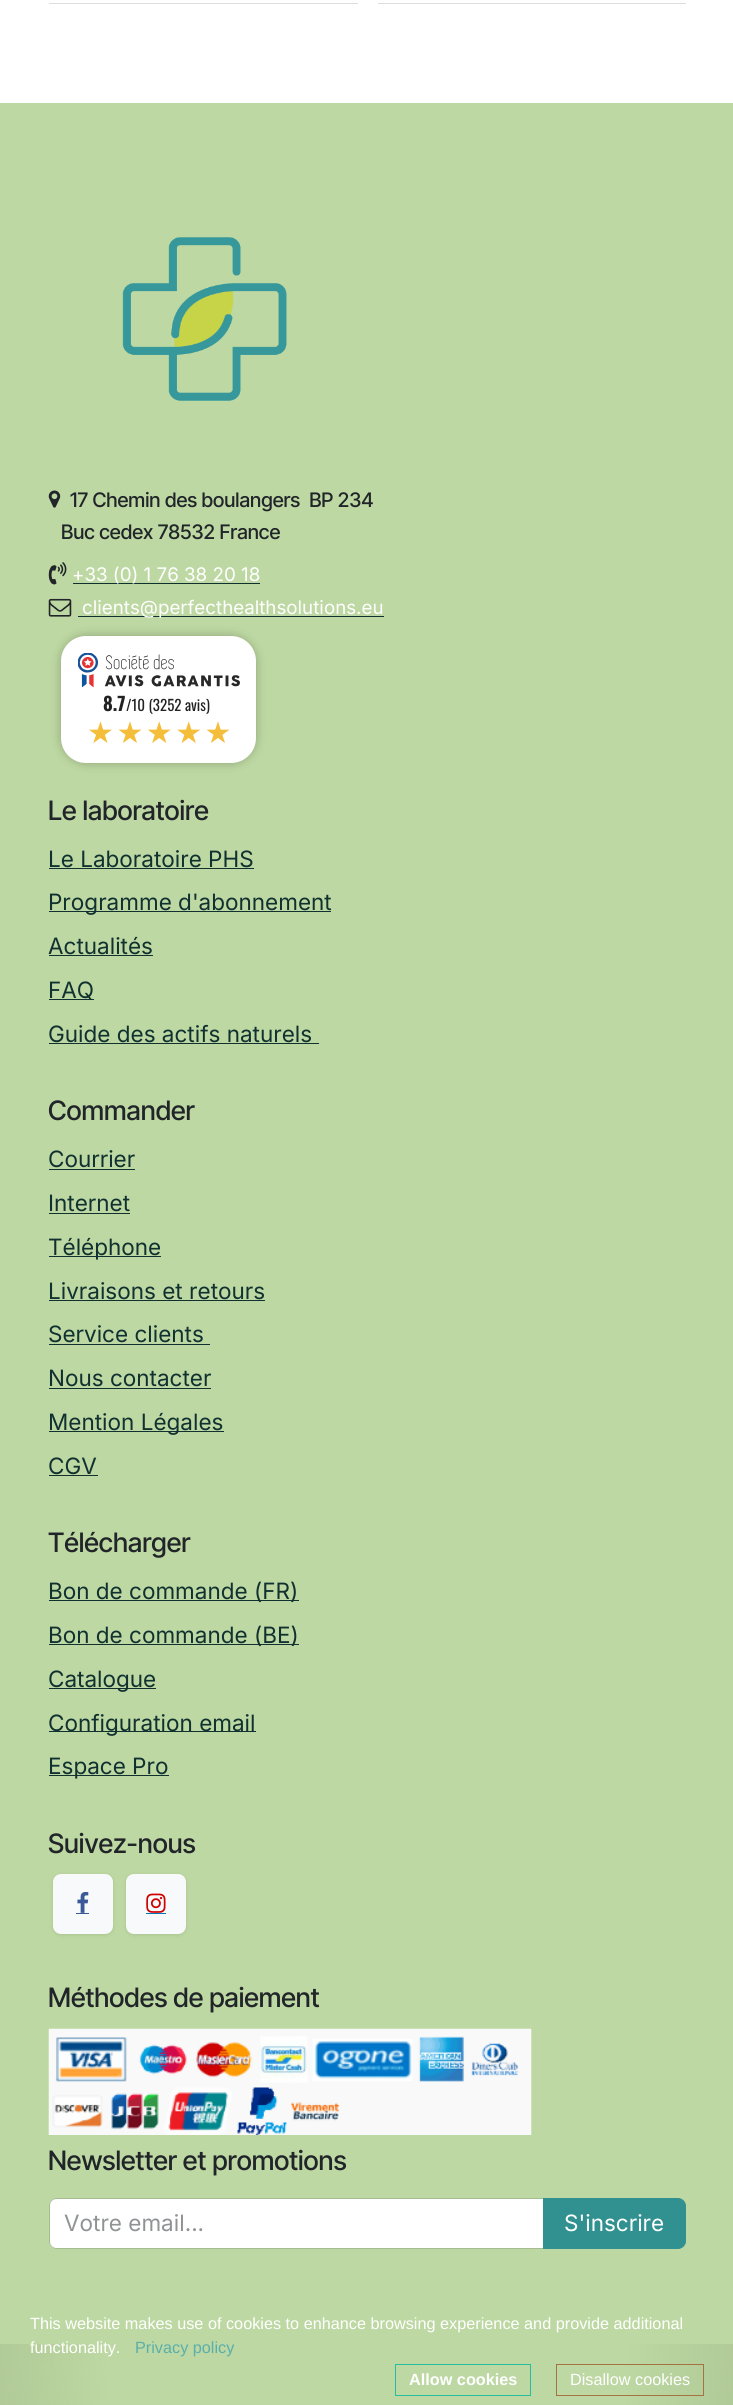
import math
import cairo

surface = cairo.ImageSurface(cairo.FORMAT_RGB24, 733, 2405)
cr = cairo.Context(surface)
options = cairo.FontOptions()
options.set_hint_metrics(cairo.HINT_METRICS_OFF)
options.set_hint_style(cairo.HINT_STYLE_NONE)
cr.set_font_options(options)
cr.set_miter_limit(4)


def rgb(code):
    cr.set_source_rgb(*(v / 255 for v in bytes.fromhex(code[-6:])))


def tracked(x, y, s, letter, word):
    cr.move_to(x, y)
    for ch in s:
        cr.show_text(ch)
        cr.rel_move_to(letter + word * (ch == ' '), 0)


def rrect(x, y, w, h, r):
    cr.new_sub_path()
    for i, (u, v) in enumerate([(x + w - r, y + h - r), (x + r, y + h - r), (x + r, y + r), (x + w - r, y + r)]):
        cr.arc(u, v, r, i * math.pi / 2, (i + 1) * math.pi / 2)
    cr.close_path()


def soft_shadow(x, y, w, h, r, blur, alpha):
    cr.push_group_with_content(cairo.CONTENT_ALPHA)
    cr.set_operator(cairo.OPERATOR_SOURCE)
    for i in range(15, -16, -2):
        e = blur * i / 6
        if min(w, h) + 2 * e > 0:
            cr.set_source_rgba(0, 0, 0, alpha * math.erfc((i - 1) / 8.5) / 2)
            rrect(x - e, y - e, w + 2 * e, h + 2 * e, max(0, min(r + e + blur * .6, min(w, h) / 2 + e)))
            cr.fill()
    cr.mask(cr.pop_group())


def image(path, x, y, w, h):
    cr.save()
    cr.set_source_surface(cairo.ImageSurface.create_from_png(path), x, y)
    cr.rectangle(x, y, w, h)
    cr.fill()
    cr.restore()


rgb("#ffffff")
cr.paint()
for x, y, w, h, color in [
    (49, 3, 309, 1, "#dededf"),
    (378, 3, 308, 1, "#dededf"),
    (0, 103, 733, 2241, "#bdd8a2"),
]:
    rgb(color)
    cr.rectangle(x, y, w, h)
    cr.fill()
image("img/1.png", 122, 237, 165, 164)
image("img/2.png", 48, 490, 13, 18)
image("img/3.png", 48, 562, 19, 23)
rgb("#113131")
cr.rectangle(73, 583, 187, 1)
cr.fill()
image("img/4.png", 48, 598, 24, 19)
cr.rectangle(78, 616, 306, 1)
cr.fill()
rgb("#000000")
soft_shadow(61, 636, 195, 127, 25, 5, 0.25)
rgb("#ffffff")
rrect(61, 636, 195, 127, 25)
cr.fill()
image("img/5.png", 78, 653, 162, 35)
for x, y, w, h, color in [
    (49, 868, 205, 1, "#113131"),
    (49, 911, 282, 1, "#113131"),
    (49, 955, 104, 1, "#113131"),
    (49, 999, 45, 1, "#113131"),
    (49, 1043, 270, 1, "#113131"),
    (49, 1169, 86, 1, "#113131"),
    (49, 1213, 81, 1, "#113131"),
    (49, 1256, 112, 1, "#113131"),
    (49, 1300, 216, 1, "#113131"),
    (49, 1344, 161, 1, "#113131"),
    (49, 1388, 162, 1, "#113131"),
    (49, 1431, 175, 1, "#113131"),
    (49, 1475, 49, 1, "#113131"),
    (49, 1600, 250, 1, "#113131"),
    (49, 1644, 250, 1, "#113131"),
    (49, 1688, 107, 1, "#113131"),
    (49, 1731, 207, 1, "#113131"),
    (49, 1775, 120, 1, "#113131"),
]:
    rgb(color)
    cr.rectangle(x, y, w, h)
    cr.fill()
rgb("#000000")
soft_shadow(53, 1875, 60, 60, 8, 2, 0.1)
rgb("#f8f9fa")
rrect(53, 1874, 60, 60, 8)
cr.fill()
rgb("#3b5999")
cr.rectangle(76, 1913, 13, 1)
cr.fill()
image("img/6.png", 77, 1892, 12, 21)
rgb("#000000")
soft_shadow(126, 1875, 60, 60, 8, 2, 0.1)
rgb("#f8f9fa")
rrect(126, 1874, 60, 60, 8)
cr.fill()
rgb("#0077b5")
cr.rectangle(146, 1913, 20, 1)
cr.fill()
image("img/7.png", 146, 1893, 20, 20)
image("img/8.png", 48, 2028, 484, 107)
rgb("#ffffff")
cr.new_path()
cr.move_to(56, 2199)
cr.line_to(543, 2199)
cr.line_to(543, 2248)
cr.line_to(56, 2248)
cr.curve_to(52.5, 2248, 50, 2245.5, 50, 2242)
cr.line_to(50, 2205)
cr.curve_to(50, 2201.5, 52.5, 2199, 56, 2199)
cr.close_path()
cr.fill()
cr.new_path()
cr.move_to(57, 2198.5)
cr.line_to(543.5, 2198.5)
cr.line_to(543.5, 2248.5)
cr.line_to(57, 2248.5)
cr.curve_to(53, 2248.5, 49.5, 2245, 49.5, 2241)
cr.line_to(49.5, 2206)
cr.curve_to(49.5, 2202, 53, 2198.5, 57, 2198.5)
cr.close_path()
cr.set_source_rgba(0.129, 0.145, 0.161, 0.15)
cr.set_line_width(1)
cr.stroke()
rgb("#319090")
cr.new_path()
cr.move_to(543.5, 2198.5)
cr.line_to(678, 2198.5)
cr.curve_to(682, 2198.5, 685.5, 2202, 685.5, 2206)
cr.line_to(685.5, 2241)
cr.curve_to(685.5, 2245, 682, 2248.5, 678, 2248.5)
cr.line_to(543.5, 2248.5)
cr.close_path()
cr.fill_preserve()
cr.stroke()
rgb("#a1b88a")
cr.rectangle(0, 2344, 733, 61)
cr.fill()
gradient = cairo.RadialGradient(367, 2353, 0, 367, 2353, 371)
gradient.add_color_stop_rgba(0.7, 0.741, 0.847, 0.635, 1)
gradient.add_color_stop_rgba(1, 0.741, 0.847, 0.635, 0.56)
cr.set_source(gradient)
cr.rectangle(0, 2344, 733, 61)
cr.fill()
cr.rectangle(395.5, 2364.5, 135, 31)
rgb("#25bea0")
cr.stroke()
cr.rectangle(556.5, 2364.5, 147, 31)
rgb("#a57341")
cr.stroke()
cr.select_font_face("Inter Tight Medium")
cr.set_font_size(20)
rgb("#212529")
cr.move_to(70, 507)
cr.show_text("17 Chemin des boulangers  BP 234")
cr.move_to(61, 539)
cr.show_text("Buc cedex 78532 France")
cr.select_font_face("Inter")
cr.set_font_size(18.75)
rgb("#ffffff")
cr.move_to(72, 581)
cr.show_text("+33 (0) 1 76 38 20 18")
cr.move_to(82, 614)
cr.show_text("clients@perfecthealthsolutions.eu")
cr.select_font_face("Oswald", cairo.FONT_SLANT_NORMAL, cairo.FONT_WEIGHT_BOLD)
rgb("#222222")
cr.move_to(103, 711)
cr.show_text("8.7")
cr.select_font_face("Oswald")
cr.set_font_size(15)
cr.move_to(126, 711)
cr.show_text("/10 (3252 avis)")
cr.select_font_face("DejaVu Sans")
cr.set_font_size(30)
rgb("#f4bd3a")
tracked(87, 743, "★★★★★", 2.5, 0)
cr.select_font_face("Inter Tight Medium")
cr.set_font_size(26.75)
rgb("#212529")
cr.move_to(48, 820)
cr.show_text("Le laboratoire")
cr.select_font_face("Inter")
cr.set_font_size(22.5)
rgb("#113131")
for x, y, s in [
    (48, 867, "Le Laboratoire PHS"),
    (48, 910, "Programme d'abonnement"),
    (48, 954, "Actualités"),
    (48, 998, "FAQ"),
    (48, 1042, "Guide des actifs naturels"),
]:
    cr.move_to(x, y)
    cr.show_text(s)
cr.select_font_face("Inter Tight Medium")
cr.set_font_size(26.75)
rgb("#212529")
cr.move_to(48, 1120)
cr.show_text("Commander")
cr.select_font_face("Inter")
cr.set_font_size(22.5)
rgb("#113131")
for x, y, s in [
    (48, 1167, "Courrier"),
    (48, 1211, "Internet"),
    (48, 1255, "Téléphone"),
    (48, 1299, "Livraisons et retours"),
    (48, 1342, "Service clients"),
    (48, 1386, "Nous contacter"),
    (48, 1430, "Mention Légales"),
    (48, 1474, "CGV"),
]:
    cr.move_to(x, y)
    cr.show_text(s)
cr.select_font_face("Inter Tight Medium")
cr.set_font_size(26.75)
rgb("#212529")
cr.move_to(48, 1552)
cr.show_text("Télécharger")
cr.select_font_face("Inter")
cr.set_font_size(22.5)
rgb("#113131")
for x, y, s in [
    (48, 1599, "Bon de commande (FR)"),
    (48, 1643, "Bon de commande (BE)"),
    (48, 1687, "Catalogue"),
    (48, 1731, "Configuration email"),
    (48, 1774, "Espace Pro"),
]:
    cr.move_to(x, y)
    cr.show_text(s)
cr.select_font_face("Inter Tight Medium")
cr.set_font_size(26.75)
rgb("#212529")
for x, y, s in [
    (48, 1853, "Suivez-nous"),
    (48, 2007, "Méthodes de paiement"),
    (48, 2170, "Newsletter et promotions"),
]:
    cr.move_to(x, y)
    cr.show_text(s)
cr.select_font_face("Inter")
cr.set_font_size(22.5)
rgb("#909294")
cr.move_to(64, 2231)
cr.show_text("Votre email...")
rgb("#ffffff")
cr.move_to(564, 2231)
cr.show_text("S'inscrire")
cr.select_font_face("Liberation Sans")
cr.set_font_size(16.25)
cr.move_to(30, 2329)
cr.show_text("This website makes use of cookies to enhance browsing experience and provide additional")
cr.move_to(30, 2353)
cr.show_text("functionality.")
rgb("#5aafaa")
cr.move_to(135, 2353)
cr.show_text("Privacy policy")
cr.select_font_face("Liberation Sans", cairo.FONT_SLANT_NORMAL, cairo.FONT_WEIGHT_BOLD)
rgb("#ffffff")
cr.move_to(409, 2385)
cr.show_text("Allow cookies")
cr.select_font_face("Liberation Sans")
cr.move_to(570, 2385)
cr.show_text("Disallow cookies")
surface.write_to_png("page.png")
